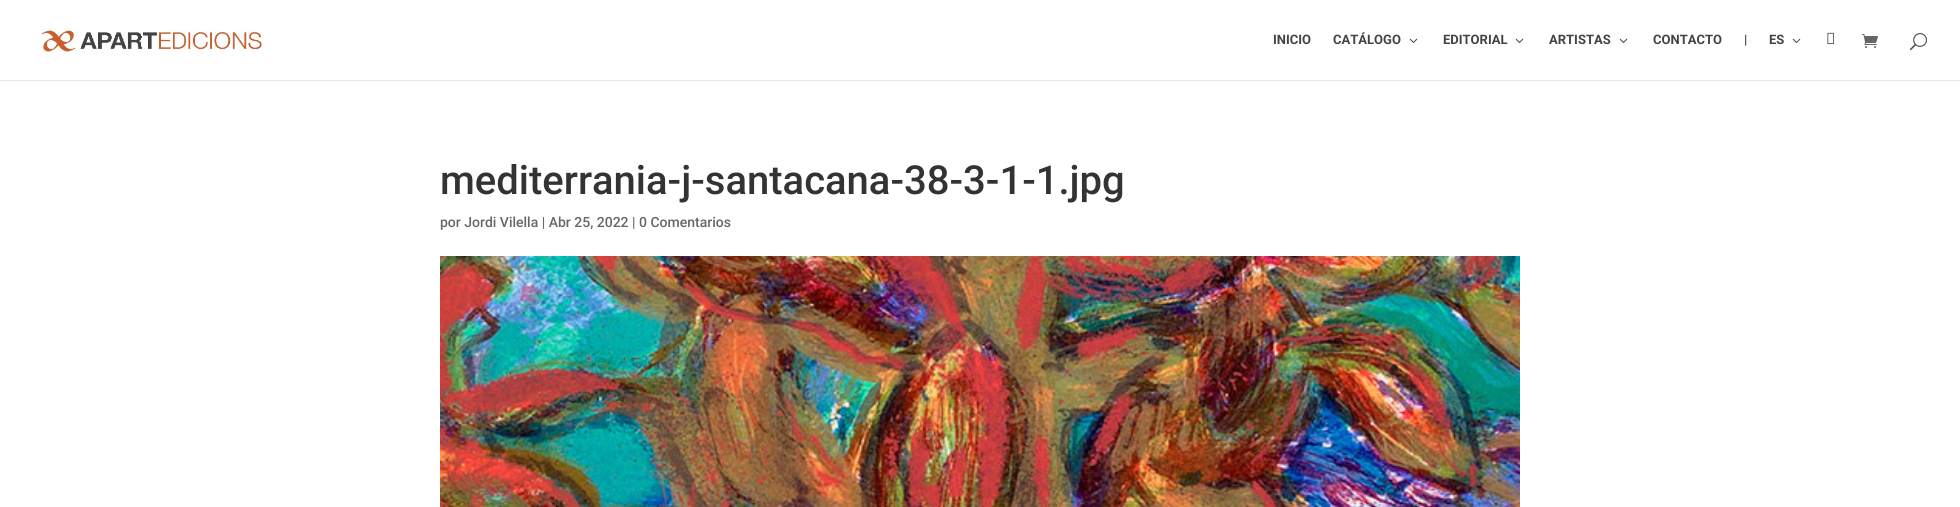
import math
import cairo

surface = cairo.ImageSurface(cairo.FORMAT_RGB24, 1960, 507)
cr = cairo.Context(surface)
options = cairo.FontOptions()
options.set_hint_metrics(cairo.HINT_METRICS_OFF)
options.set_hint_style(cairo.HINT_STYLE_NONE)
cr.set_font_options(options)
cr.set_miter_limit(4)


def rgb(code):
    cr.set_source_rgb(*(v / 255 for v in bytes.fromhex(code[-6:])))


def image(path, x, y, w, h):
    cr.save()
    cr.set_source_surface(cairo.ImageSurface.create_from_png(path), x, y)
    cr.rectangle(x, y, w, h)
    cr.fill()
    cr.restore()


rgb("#ffffff")
cr.paint()
rgb("#e6e6e6")
cr.rectangle(0, 80, 1960, 1)
cr.fill()
image("img/1.png", 40, 29, 223, 24)
image("img/2.png", 1409, 38, 9, 5)
image("img/2.png", 1515, 38, 9, 5)
image("img/2.png", 1619, 38, 9, 5)
image("img/2.png", 1792, 38, 9, 5)
image("img/3.png", 1827, 32, 7, 12)
image("img/4.png", 1862, 34, 16, 14)
image("img/5.png", 1910, 33, 17, 18)
image("img/6.png", 440, 256, 1080, 251)
cr.select_font_face("Roboto", cairo.FONT_SLANT_NORMAL, cairo.FONT_WEIGHT_BOLD)
cr.set_font_size(13)
rgb("#434343")
for x, y, s in [
    (1273, 44, "INICIO"),
    (1333, 44, "CATÁLOGO"),
    (1443, 44, "EDITORIAL"),
    (1549, 44, "ARTISTAS"),
    (1653, 44, "CONTACTO"),
    (1744, 44, "|"),
    (1769, 44, "ES"),
]:
    cr.move_to(x, y)
    cr.show_text(s)
cr.select_font_face("Roboto Medium")
cr.set_font_size(40)
rgb("#333333")
cr.move_to(440, 194)
cr.show_text("mediterrania-j-santacana-38-3-1-1.jpg")
cr.set_font_size(14)
rgb("#666666")
cr.move_to(440, 227)
cr.show_text("por Jordi Vilella | Abr 25, 2022 | 0 Comentarios")
surface.write_to_png("page.png")
